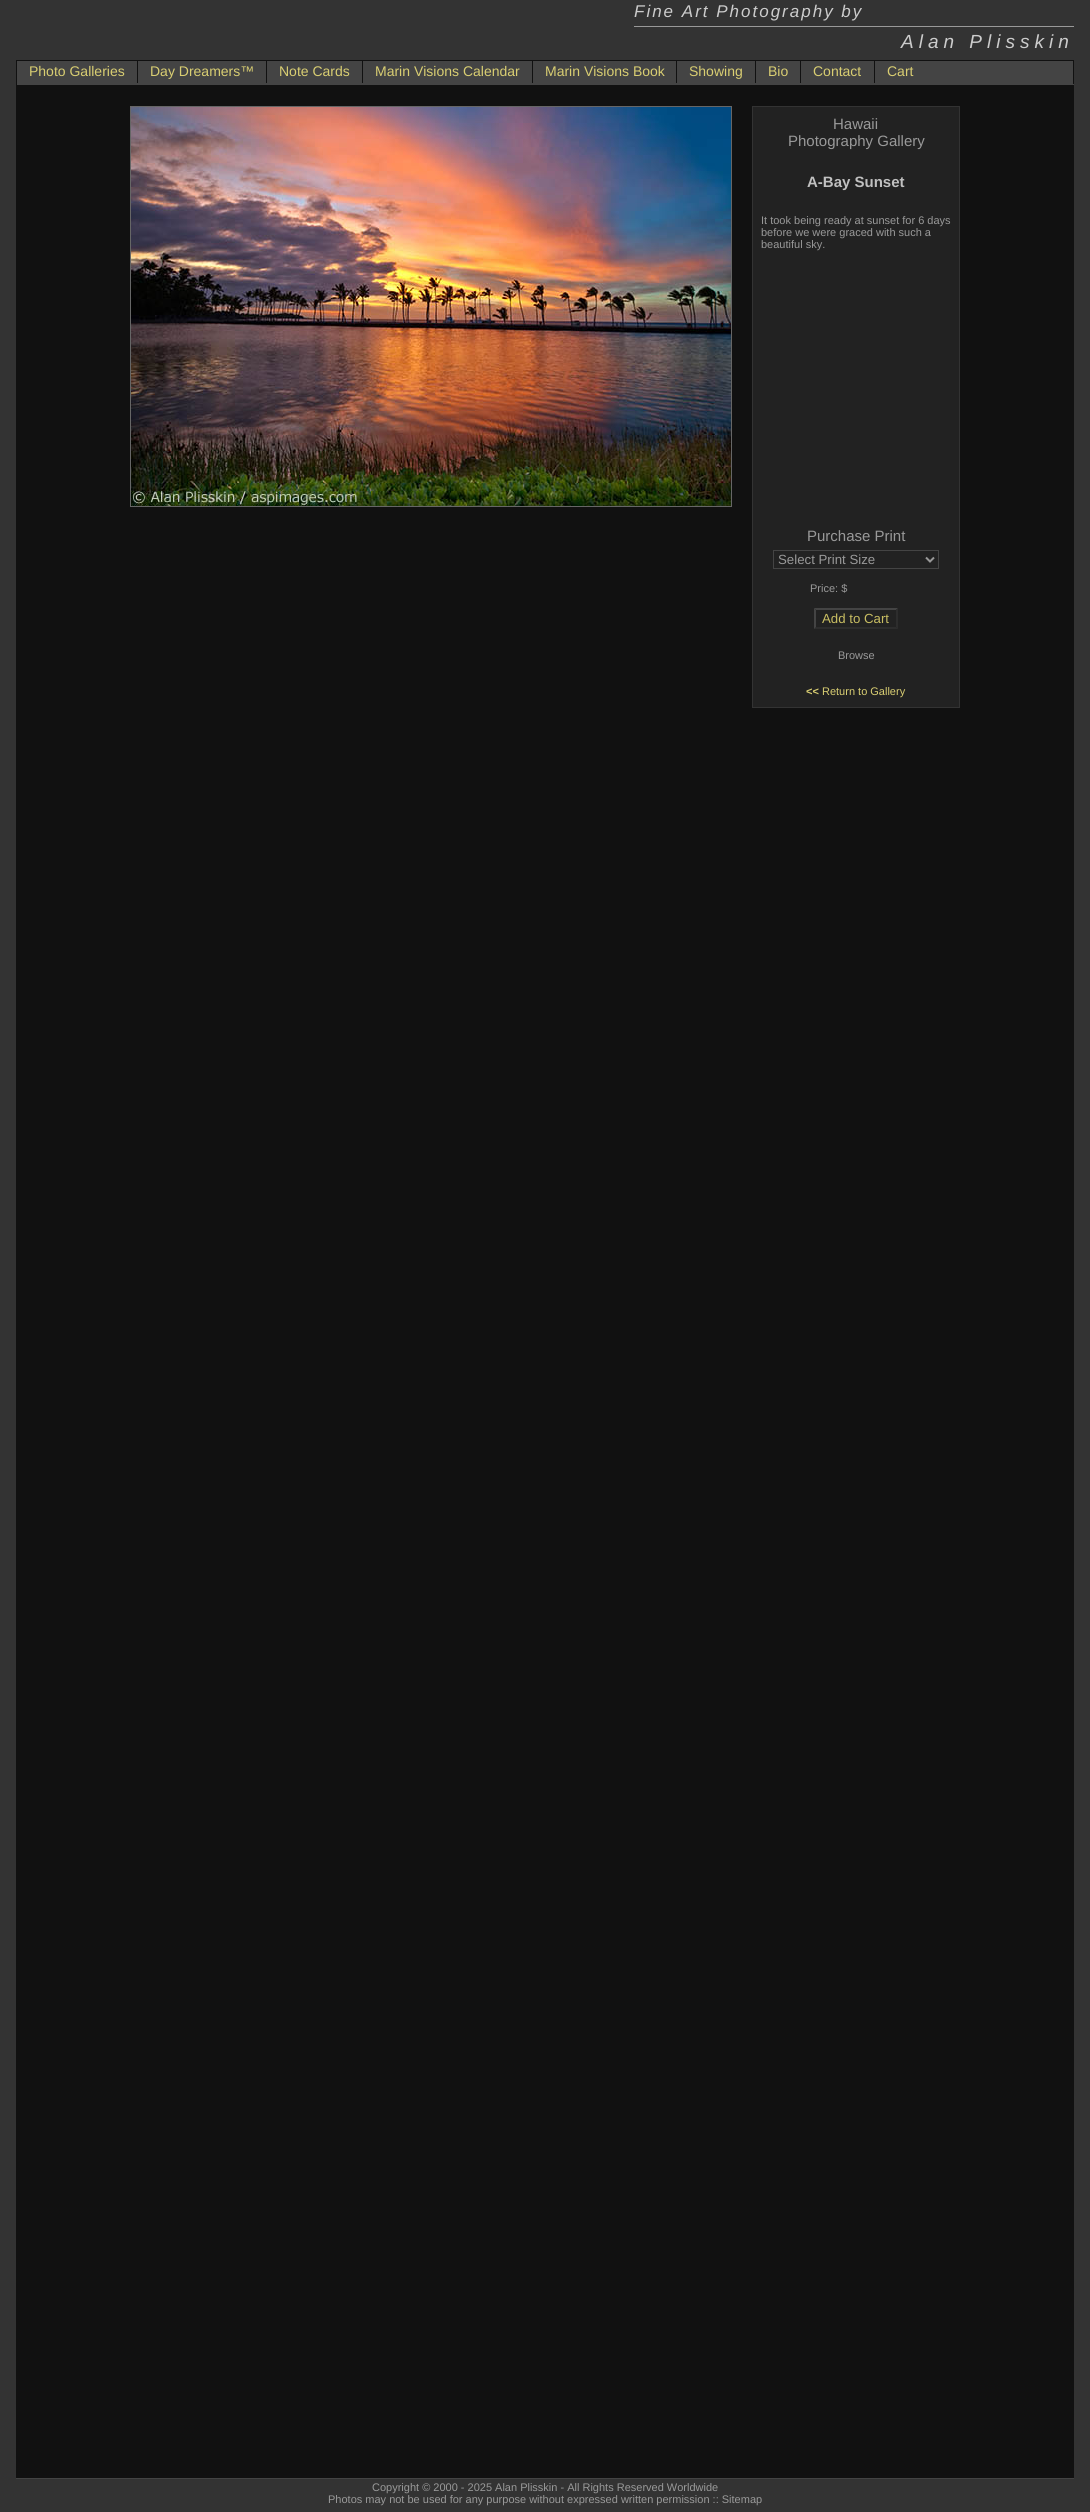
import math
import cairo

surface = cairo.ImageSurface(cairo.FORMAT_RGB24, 1090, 2512)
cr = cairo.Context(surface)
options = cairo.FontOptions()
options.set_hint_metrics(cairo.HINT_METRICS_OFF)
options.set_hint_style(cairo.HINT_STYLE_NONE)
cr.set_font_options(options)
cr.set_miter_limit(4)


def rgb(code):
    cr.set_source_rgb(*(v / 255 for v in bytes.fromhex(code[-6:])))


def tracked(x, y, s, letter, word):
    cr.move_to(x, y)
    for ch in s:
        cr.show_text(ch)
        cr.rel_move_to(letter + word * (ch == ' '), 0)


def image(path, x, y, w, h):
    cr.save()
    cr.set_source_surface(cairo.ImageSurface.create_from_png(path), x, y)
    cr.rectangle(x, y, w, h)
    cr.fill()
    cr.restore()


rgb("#111111")
cr.paint()
for x, y, w, h, color in [
    (1074, 0, 16, 2512, "#333333"),
    (0, 0, 16, 2512, "#333333"),
    (16, 0, 1058, 60, "#333333"),
    (634, 26, 440, 1, "#999999"),
    (17, 61, 1056, 23, "#444444"),
    (16, 84, 1058, 1, "#444444"),
    (16, 84, 1, 1, "#111111"),
    (137, 61, 1, 22, "#111111"),
    (266, 61, 1, 22, "#111111"),
    (362, 61, 1, 22, "#111111"),
    (532, 61, 1, 22, "#111111"),
    (676, 61, 1, 22, "#111111"),
    (755, 61, 1, 22, "#111111"),
    (800, 61, 1, 22, "#111111"),
    (874, 61, 1, 22, "#111111"),
]:
    rgb(color)
    cr.rectangle(x, y, w, h)
    cr.fill()
cr.rectangle(130.5, 106.5, 601, 400)
rgb("#666666")
cr.set_line_width(1)
cr.stroke()
image("img/1.png", 131, 107, 600, 399)
rgb("#222222")
cr.rectangle(752.5, 106.5, 207, 601)
cr.fill_preserve()
rgb("#333333")
cr.stroke()
cr.rectangle(773.5, 550.5, 165, 18)
rgb("#444444")
cr.stroke()
cr.new_path()
cr.move_to(926, 557.5)
cr.line_to(930, 561.5)
cr.line_to(934, 557.5)
rgb("#999999")
cr.set_line_width(2)
cr.stroke()
rgb("#444444")
cr.new_path()
cr.move_to(814, 608)
cr.line_to(898, 608)
cr.line_to(896, 610)
cr.line_to(816, 610)
cr.close_path()
cr.fill()
rgb("#2d2d2d")
cr.new_path()
cr.move_to(898, 608)
cr.line_to(898, 629)
cr.line_to(896, 627)
cr.line_to(896, 610)
cr.close_path()
cr.fill()
cr.new_path()
cr.move_to(898, 629)
cr.line_to(814, 629)
cr.line_to(816, 627)
cr.line_to(896, 627)
cr.close_path()
cr.fill()
rgb("#444444")
cr.new_path()
cr.move_to(814, 629)
cr.line_to(814, 608)
cr.line_to(816, 610)
cr.line_to(816, 627)
cr.close_path()
cr.fill()
rgb("#333333")
cr.rectangle(16, 2479, 1058, 33)
cr.fill()
rgb("#444444")
cr.rectangle(16, 2478, 1058, 1)
cr.fill()
cr.select_font_face("Liberation Sans", cairo.FONT_SLANT_ITALIC)
cr.set_font_size(17)
rgb("#cccccc")
tracked(634, 17, "Fine Art Photography by", 2, 0)
cr.set_font_size(19)
tracked(901, 48, "Alan Plisskin", 5, 0)
cr.select_font_face("Liberation Sans")
cr.set_font_size(14)
rgb("#d9ce72")
for x, y, s in [
    (29, 76, "Photo Galleries"),
    (150, 76, "Day Dreamers™"),
    (279, 76, "Note Cards"),
    (375, 76, "Marin Visions Calendar"),
    (545, 76, "Marin Visions Book"),
    (689, 76, "Showing"),
    (768, 76, "Bio"),
    (813, 76, "Contact"),
    (887, 76, "Cart"),
]:
    cr.move_to(x, y)
    cr.show_text(s)
cr.set_font_size(15)
rgb("#999999")
cr.move_to(833, 129)
cr.show_text("Hawaii")
cr.move_to(788, 146)
cr.show_text("Photography Gallery")
cr.select_font_face("Liberation Sans", cairo.FONT_SLANT_NORMAL, cairo.FONT_WEIGHT_BOLD)
rgb("#c0c0c0")
cr.move_to(807, 187)
cr.show_text("A-Bay Sunset")
cr.select_font_face("Liberation Sans")
cr.set_font_size(11)
rgb("#999999")
for x, y, s in [
    (761, 224, "It took being ready at sunset for 6 days"),
    (761, 236, "before we were graced with such a"),
    (761, 248, "beautiful sky."),
]:
    cr.move_to(x, y)
    cr.show_text(s)
cr.set_font_size(15)
cr.move_to(807, 541)
cr.show_text("Purchase Print")
cr.set_font_size(13.25)
cr.move_to(778, 564)
cr.show_text("Select Print Size")
cr.set_font_size(11)
cr.move_to(810, 592)
cr.show_text("Price: $")
cr.set_font_size(13.25)
rgb("#c9be62")
cr.move_to(822, 623)
cr.show_text("Add to Cart")
cr.set_font_size(11)
rgb("#999999")
cr.move_to(838, 659)
cr.show_text("Browse")
cr.select_font_face("Liberation Sans", cairo.FONT_SLANT_NORMAL, cairo.FONT_WEIGHT_BOLD)
rgb("#d9ce72")
cr.move_to(806, 695)
cr.show_text("<<")
cr.select_font_face("Liberation Sans")
cr.move_to(822, 695)
cr.show_text("Return to Gallery")
rgb("#999999")
cr.move_to(372, 2491)
cr.show_text("Copyright © 2000 - 2025 Alan Plisskin - All Rights Reserved Worldwide")
cr.move_to(328, 2503)
cr.show_text("Photos may not be used for any purpose without expressed written permission :: Sitemap")
surface.write_to_png("page.png")
